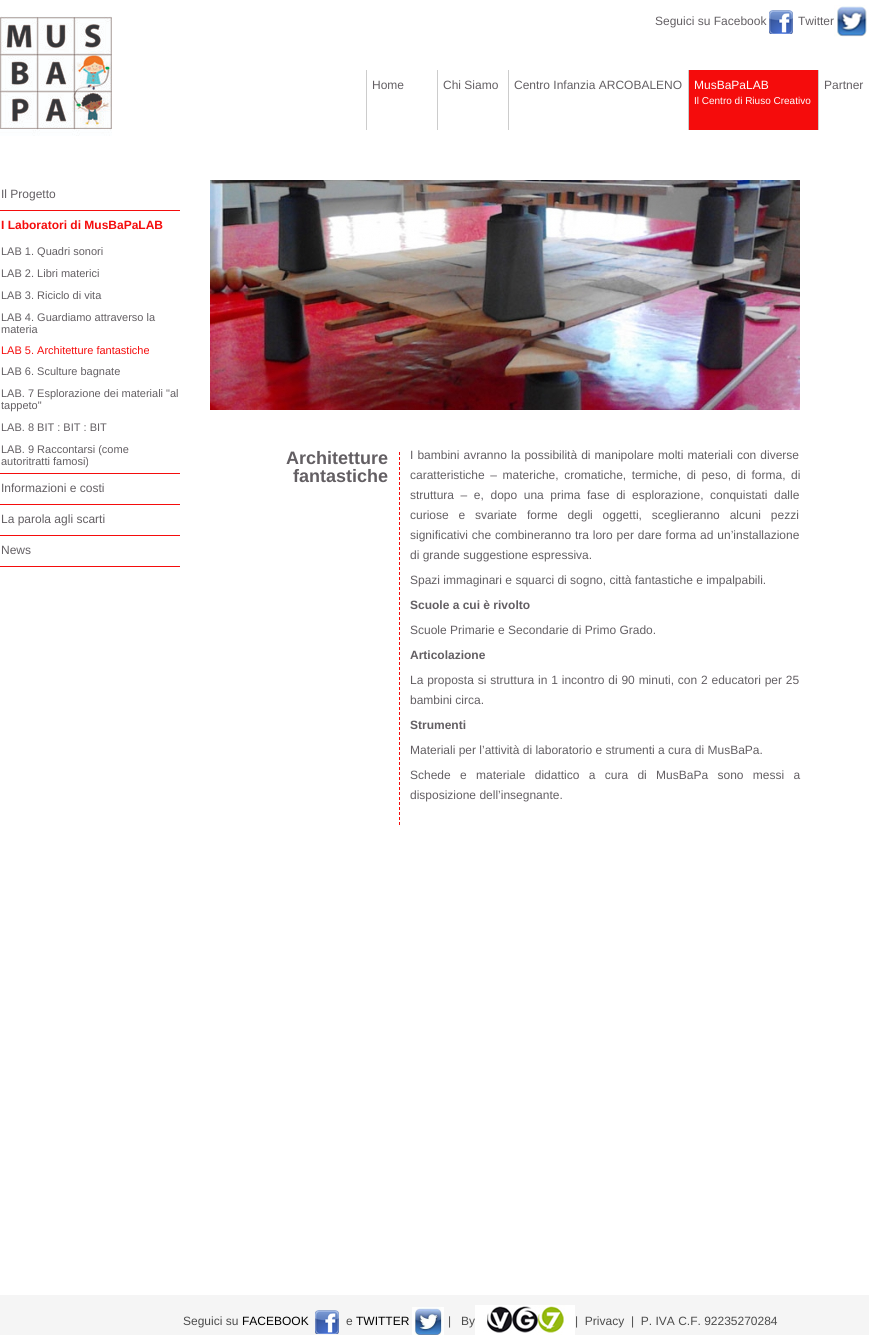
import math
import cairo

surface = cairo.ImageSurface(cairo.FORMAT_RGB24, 869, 1335)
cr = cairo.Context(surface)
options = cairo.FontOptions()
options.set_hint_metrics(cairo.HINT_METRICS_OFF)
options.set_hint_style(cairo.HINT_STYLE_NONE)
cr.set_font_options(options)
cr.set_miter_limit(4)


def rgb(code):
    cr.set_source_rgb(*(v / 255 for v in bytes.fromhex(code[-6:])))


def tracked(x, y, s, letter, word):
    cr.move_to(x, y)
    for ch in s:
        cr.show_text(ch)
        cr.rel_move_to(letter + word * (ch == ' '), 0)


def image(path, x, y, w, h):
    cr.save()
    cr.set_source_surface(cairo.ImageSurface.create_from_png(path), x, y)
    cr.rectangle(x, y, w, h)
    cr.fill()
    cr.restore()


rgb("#ffffff")
cr.paint()
image("img/1.png", 0, 16, 112, 120)
image("img/2.png", 769, 10, 24, 24)
for x, y, w, h, color in [
    (366, 70, 1, 60, "#cccccc"),
    (437, 70, 1, 60, "#cccccc"),
    (508, 70, 1, 60, "#cccccc"),
    (689, 70, 129, 60, "#f50c0c"),
    (688, 70, 1, 60, "#cccccc"),
    (818, 70, 1, 60, "#cccccc"),
    (0, 566, 180, 1, "#f50c0c"),
    (0, 210, 180, 1, "#f50c0c"),
    (0, 473, 180, 1, "#f50c0c"),
    (0, 504, 180, 1, "#f50c0c"),
    (0, 535, 180, 1, "#f50c0c"),
]:
    rgb(color)
    cr.rectangle(x, y, w, h)
    cr.fill()
image("img/4.png", 210, 180, 590, 230)
cr.new_path()
cr.move_to(399.5, 452)
cr.line_to(399.5, 825)
cr.set_line_width(1)
cr.set_dash([3, 2])
cr.stroke()
rgb("#f5f5f5")
cr.rectangle(0, 1295, 869, 40)
cr.fill()
image("img/5.png", 315, 1310, 24, 24)
image("img/6.png", 412, 1307, 32, 28)
image("img/7.png", 475, 1305, 100, 30)
cr.select_font_face("Liberation Sans")
cr.set_font_size(12)
rgb("#635f63")
cr.move_to(655, 25)
cr.show_text("Seguici su Facebook")
cr.move_to(798, 25)
cr.show_text("Twitter")
image("img/3.png", 834, 5, 33, 32)
for x, y, s in [
    (372, 89, "Home"),
    (443, 89, "Chi Siamo"),
    (514, 89, "Centro Infanzia ARCOBALENO"),
]:
    cr.move_to(x, y)
    cr.show_text(s)
rgb("#ffffff")
cr.move_to(694, 89)
cr.show_text("MusBaPaLAB")
cr.set_font_size(10)
cr.move_to(694, 104)
cr.show_text("Il Centro di Riuso Creativo")
cr.set_font_size(12)
rgb("#635f63")
cr.move_to(824, 89)
cr.show_text("Partner")
cr.move_to(1, 198)
cr.show_text("Il Progetto")
cr.select_font_face("Liberation Sans", cairo.FONT_SLANT_NORMAL, cairo.FONT_WEIGHT_BOLD)
rgb("#f50c0c")
cr.move_to(1, 229)
cr.show_text("I Laboratori di MusBaPaLAB")
cr.select_font_face("Liberation Sans")
cr.set_font_size(11)
rgb("#635f63")
for x, y, s in [
    (1, 255, "LAB 1. Quadri sonori"),
    (1, 277, "LAB 2. Libri materici"),
    (1, 299, "LAB 3. Riciclo di vita"),
    (1, 321, "LAB 4. Guardiamo attraverso la"),
    (1, 333, "materia"),
]:
    cr.move_to(x, y)
    cr.show_text(s)
rgb("#f50c0c")
cr.move_to(1, 354)
cr.show_text("LAB 5. Architetture fantastiche")
rgb("#635f63")
for x, y, s in [
    (1, 375, "LAB 6. Sculture bagnate"),
    (1, 397, "LAB. 7 Esplorazione dei materiali \"al"),
    (1, 409, "tappeto\""),
    (1, 431, "LAB. 8 BIT : BIT : BIT"),
    (1, 453, "LAB. 9 Raccontarsi (come"),
    (1, 465, "autoritratti famosi)"),
]:
    cr.move_to(x, y)
    cr.show_text(s)
cr.set_font_size(12)
for x, y, s in [
    (1, 492, "Informazioni e costi"),
    (1, 523, "La parola agli scarti"),
    (1, 554, "News"),
]:
    cr.move_to(x, y)
    cr.show_text(s)
cr.select_font_face("Liberation Sans", cairo.FONT_SLANT_NORMAL, cairo.FONT_WEIGHT_BOLD)
cr.set_font_size(18)
cr.move_to(286, 464)
cr.show_text("Architetture")
cr.move_to(293, 482)
cr.show_text("fantastiche")
cr.select_font_face("Liberation Sans")
cr.set_font_size(12)
tracked(410, 459, "I bambini avranno la possibilità di manipolare molti materiali con diverse", 0, 0.75)
tracked(410, 479, "caratteristiche – materiche, cromatiche, termiche, di peso, di forma, di", 0, 2.25)
tracked(410, 499, "struttura – e, dopo una prima fase di esplorazione, conquistati dalle", 0, 3.25)
tracked(410, 519, "curiose e svariate forme degli oggetti, sceglieranno alcuni pezzi", 0, 6.5)
tracked(410, 539, "significativi che combineranno tra loro per dare forma ad un’installazione", 0, 0.5)
cr.move_to(410, 559)
cr.show_text("di grande suggestione espressiva.")
cr.move_to(410, 584)
cr.show_text("Spazi immaginari e squarci di sogno, città fantastiche e impalpabili.")
cr.select_font_face("Liberation Sans", cairo.FONT_SLANT_NORMAL, cairo.FONT_WEIGHT_BOLD)
cr.move_to(410, 609)
cr.show_text("Scuole a cui è rivolto")
cr.select_font_face("Liberation Sans")
cr.move_to(410, 634)
cr.show_text("Scuole Primarie e Secondarie di Primo Grado.")
cr.select_font_face("Liberation Sans", cairo.FONT_SLANT_NORMAL, cairo.FONT_WEIGHT_BOLD)
cr.move_to(410, 659)
cr.show_text("Articolazione")
cr.select_font_face("Liberation Sans")
tracked(410, 684, "La proposta si struttura in 1 incontro di 90 minuti, con 2 educatori per 25", 0, 0.5)
cr.move_to(410, 704)
cr.show_text("bambini circa.")
cr.select_font_face("Liberation Sans", cairo.FONT_SLANT_NORMAL, cairo.FONT_WEIGHT_BOLD)
cr.move_to(410, 729)
cr.show_text("Strumenti")
cr.select_font_face("Liberation Sans")
cr.move_to(410, 754)
cr.show_text("Materiali per l’attività di laboratorio e strumenti a cura di MusBaPa.")
tracked(410, 779, "Schede e materiale didattico a cura di MusBaPa sono messi a", 0, 6)
cr.move_to(410, 799)
cr.show_text("disposizione dell’insegnante.")
rgb("#4c4c4c")
cr.move_to(183, 1325)
cr.show_text("Seguici su")
rgb("#000000")
cr.move_to(242, 1325)
cr.show_text("FACEBOOK")
rgb("#4c4c4c")
cr.move_to(346, 1325)
cr.show_text("e")
rgb("#000000")
cr.move_to(356, 1325)
cr.show_text("TWITTER")
rgb("#4c4c4c")
for x, y, s in [
    (448, 1325, "|"),
    (461, 1325, "By"),
    (575, 1325, "|  Privacy"),
    (631, 1325, "|  P. IVA C.F. 92235270284"),
]:
    cr.move_to(x, y)
    cr.show_text(s)
surface.write_to_png("page.png")
